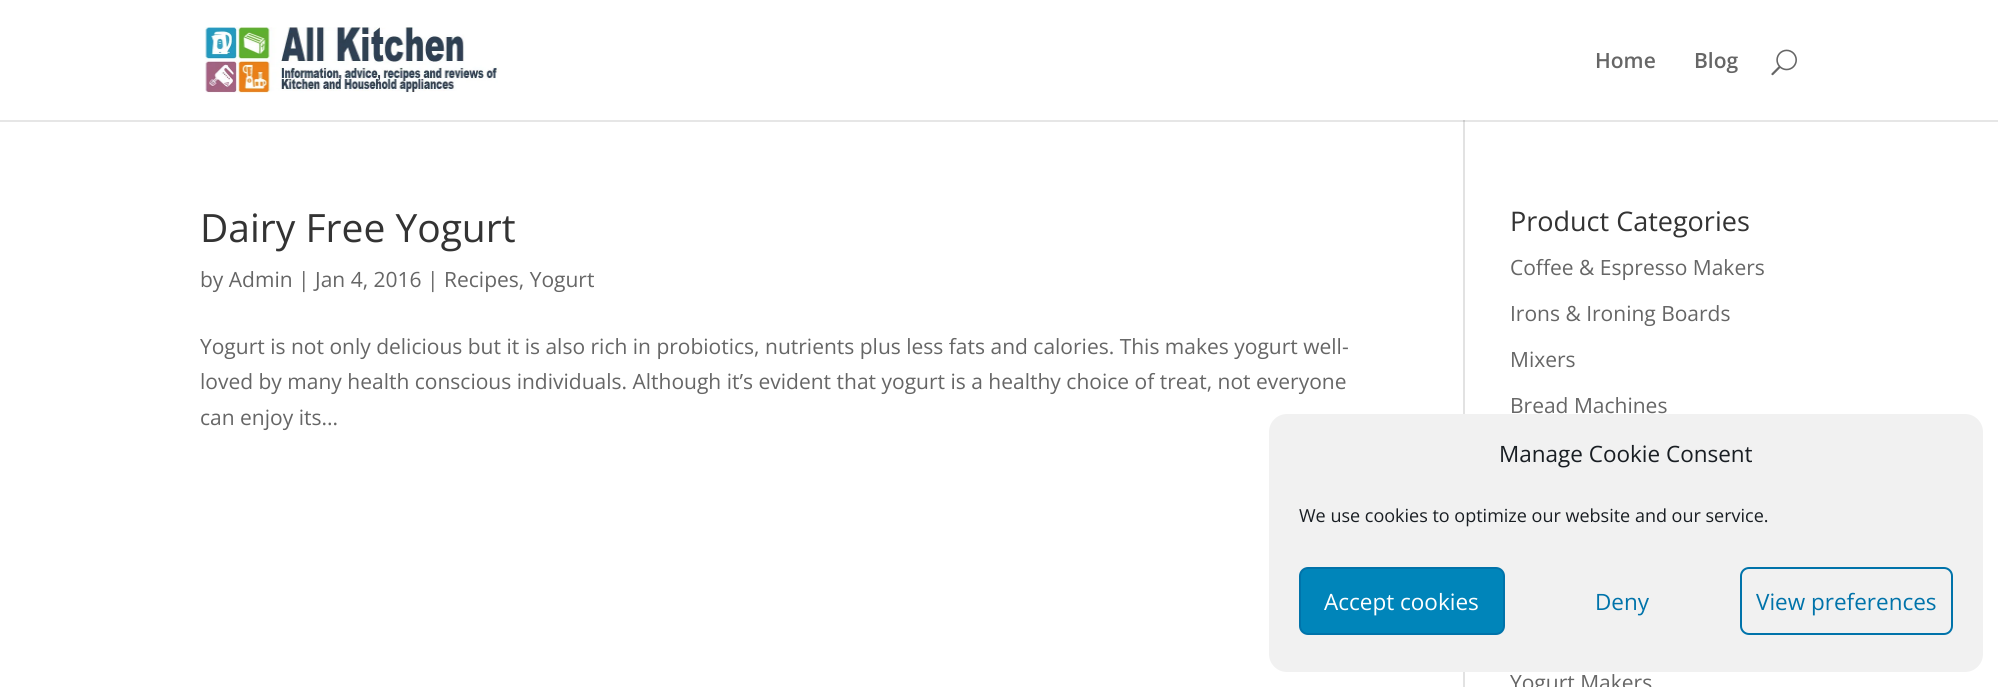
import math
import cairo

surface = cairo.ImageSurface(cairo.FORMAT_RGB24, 1998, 687)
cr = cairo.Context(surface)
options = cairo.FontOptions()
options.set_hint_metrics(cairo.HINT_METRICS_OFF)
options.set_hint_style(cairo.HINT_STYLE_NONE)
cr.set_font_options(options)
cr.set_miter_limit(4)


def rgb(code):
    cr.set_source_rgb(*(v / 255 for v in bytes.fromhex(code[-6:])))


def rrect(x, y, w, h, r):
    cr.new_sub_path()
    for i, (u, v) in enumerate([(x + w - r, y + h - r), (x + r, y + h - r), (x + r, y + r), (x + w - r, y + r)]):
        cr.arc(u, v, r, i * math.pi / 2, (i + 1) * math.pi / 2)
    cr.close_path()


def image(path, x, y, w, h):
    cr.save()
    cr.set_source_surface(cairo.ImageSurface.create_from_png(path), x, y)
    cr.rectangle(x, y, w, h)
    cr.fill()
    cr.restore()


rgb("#ffffff")
cr.paint()
rgb("#e6e6e6")
cr.rectangle(0, 120, 1998, 2)
cr.fill()
image("img/1.png", 205, 27, 295, 66)
image("img/2.png", 1771, 49, 26, 27)
rgb("#e2e2e2")
cr.rectangle(1463, 120, 2, 567)
cr.fill()
rgb("#cbcbcb")
cr.rectangle(1463, 120, 2, 2)
cr.fill()
rgb("#f1f1f1")
rrect(1269, 414, 714, 258, 18)
cr.fill()
rgb("#0085ba")
rrect(1300, 568, 204, 66, 8)
cr.fill_preserve()
rgb("#0073aa")
cr.stroke()
rrect(1741, 568, 211, 66, 8)
cr.stroke()
cr.select_font_face("Open Sans SemiBold")
cr.set_font_size(21)
rgb("#666666")
cr.move_to(1595, 68)
cr.show_text("Home")
cr.move_to(1694, 68)
cr.show_text("Blog")
cr.select_font_face("Open Sans")
cr.set_font_size(39)
rgb("#333333")
cr.move_to(200, 242)
cr.show_text("Dairy Free Yogurt")
cr.set_font_size(21)
rgb("#666666")
for x, y, s in [
    (200, 287, "by Admin | Jan 4, 2016 | Recipes, Yogurt"),
    (200, 354, "Yogurt is not only delicious but it is also rich in probiotics, nutrients plus less fats and calories. This makes yogurt well-"),
    (200, 389, "loved by many health conscious individuals. Although it’s evident that yogurt is a healthy choice of treat, not everyone"),
    (200, 425, "can enjoy its..."),
]:
    cr.move_to(x, y)
    cr.show_text(s)
cr.set_font_size(27)
rgb("#333333")
cr.move_to(1510, 231)
cr.show_text("Product Categories")
cr.set_font_size(21)
rgb("#666666")
for x, y, s in [
    (1510, 275, "Coffee & Espresso Makers"),
    (1510, 321, "Irons & Ironing Boards"),
    (1510, 367, "Mixers"),
    (1510, 413, "Bread Machines"),
    (1510, 690, "Yogurt Makers"),
]:
    cr.move_to(x, y)
    cr.show_text(s)
cr.set_font_size(22.5)
rgb("#191e23")
cr.move_to(1499, 462)
cr.show_text("Manage Cookie Consent")
cr.set_font_size(18)
cr.move_to(1299, 522)
cr.show_text("We use cookies to optimize our website and our service.")
cr.set_font_size(22.5)
rgb("#ffffff")
cr.move_to(1324, 610)
cr.show_text("Accept cookies")
rgb("#0073aa")
cr.move_to(1595, 610)
cr.show_text("Deny")
cr.move_to(1756, 610)
cr.show_text("View preferences")
surface.write_to_png("page.png")
